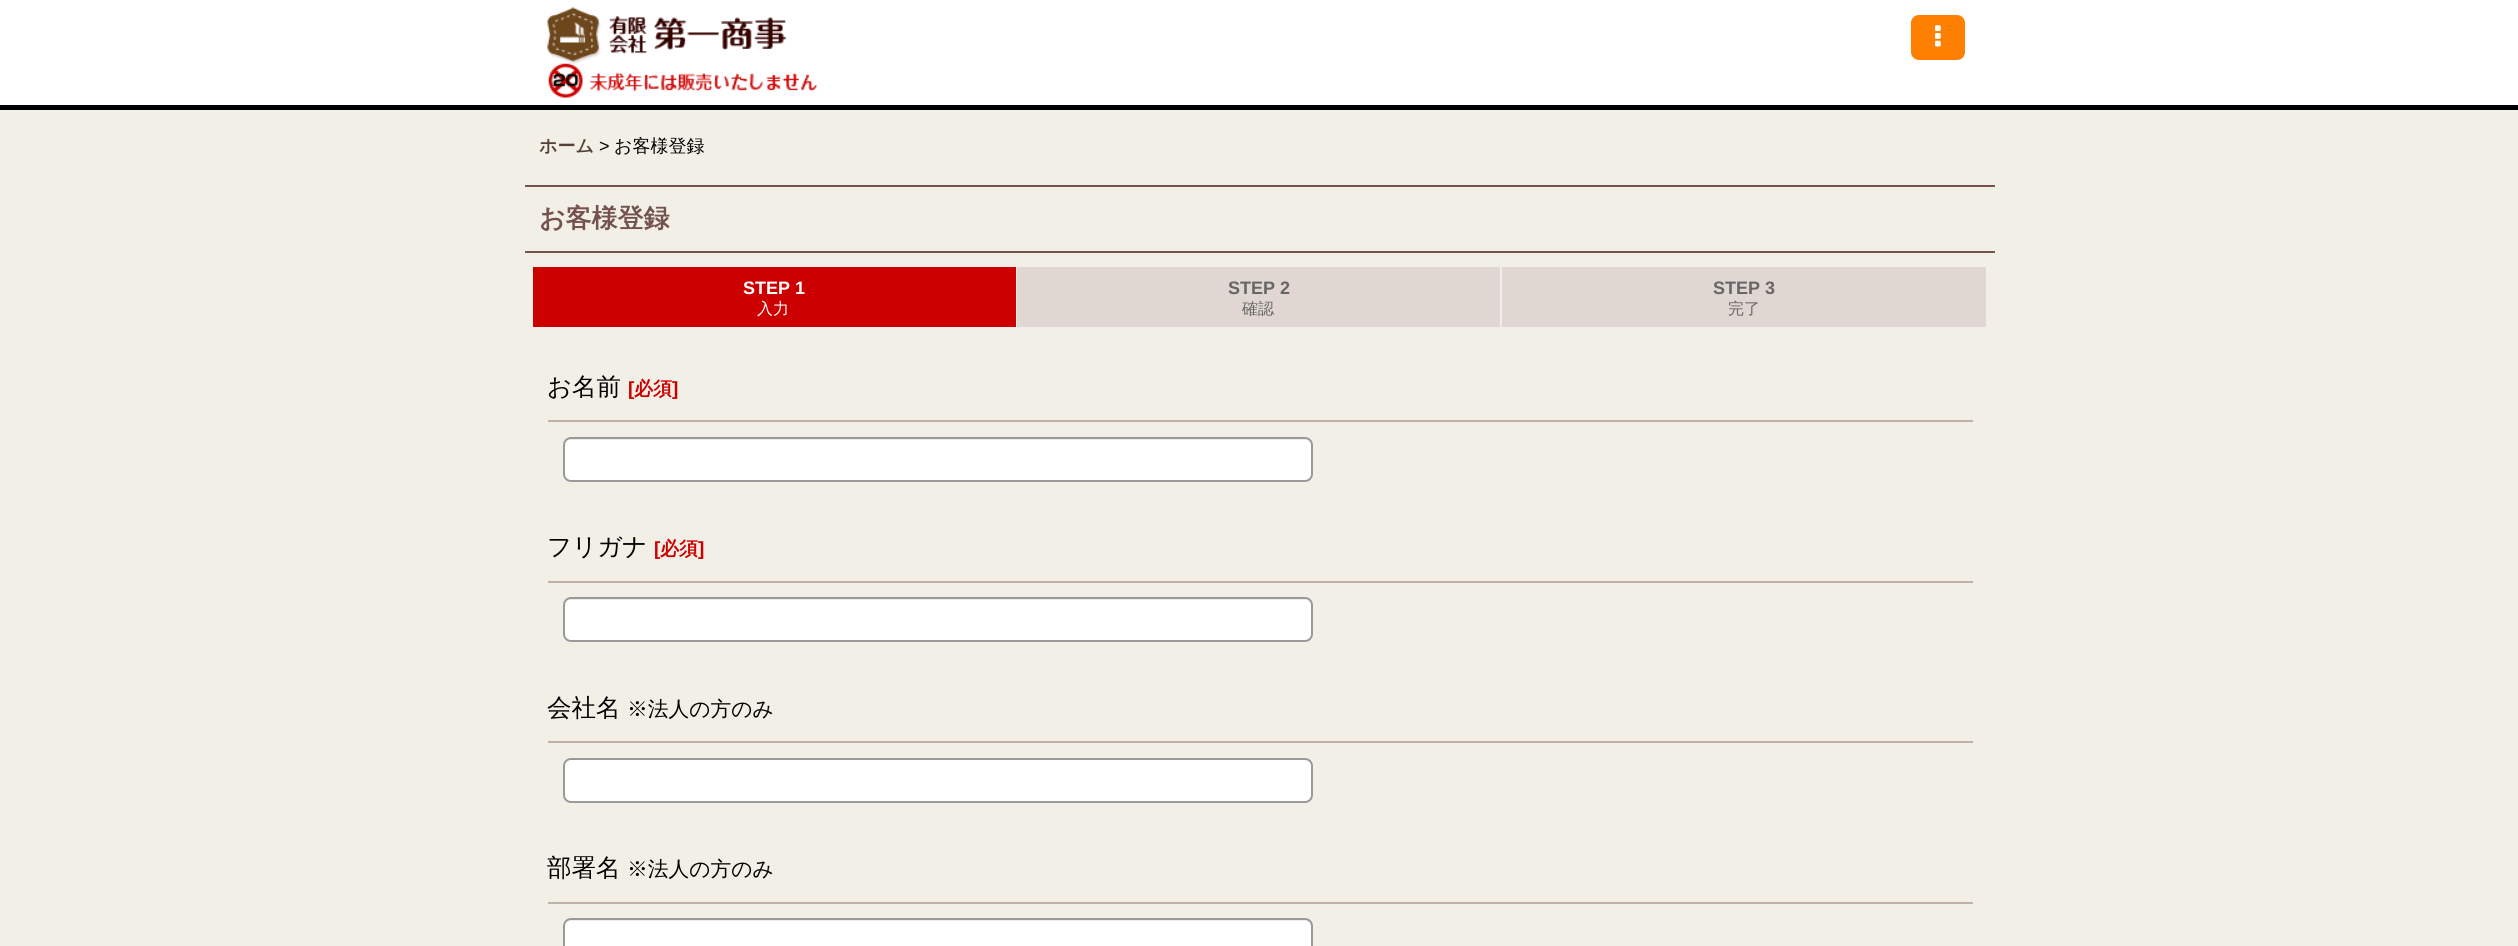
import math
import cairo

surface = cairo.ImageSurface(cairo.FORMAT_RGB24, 2518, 946)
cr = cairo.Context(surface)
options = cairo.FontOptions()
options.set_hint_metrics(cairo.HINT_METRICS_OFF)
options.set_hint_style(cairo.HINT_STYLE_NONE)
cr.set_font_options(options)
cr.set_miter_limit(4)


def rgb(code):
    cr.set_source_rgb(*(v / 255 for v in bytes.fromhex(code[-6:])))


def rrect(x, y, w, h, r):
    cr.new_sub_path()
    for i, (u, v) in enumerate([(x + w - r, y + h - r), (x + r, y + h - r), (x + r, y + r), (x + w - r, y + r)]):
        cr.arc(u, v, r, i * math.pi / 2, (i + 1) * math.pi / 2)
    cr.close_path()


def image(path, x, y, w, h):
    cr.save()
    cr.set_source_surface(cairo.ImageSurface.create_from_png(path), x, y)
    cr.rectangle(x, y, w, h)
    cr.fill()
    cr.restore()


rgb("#f2efe7")
cr.paint()
rgb("#ffffff")
cr.rectangle(0, 0, 2518, 105)
cr.fill()
rgb("#000000")
cr.rectangle(0, 105, 2518, 5)
cr.fill()
image("img/1.png", 547, 7, 271, 91)
rgb("#ff8000")
rrect(1911, 15, 54, 45, 8)
cr.fill()
image("img/2.png", 1935, 25, 6, 22)
for x, y, w, h, color in [
    (525, 185, 1470, 2, "#74524f"),
    (525, 251, 1470, 2, "#74524f"),
    (533, 267, 483, 60, "#cc0000"),
    (1016, 267, 1, 62, "#f2edec"),
    (533, 327, 484, 2, "#f2edec"),
    (1017, 267, 483, 60, "#e0d7d3"),
    (1500, 267, 2, 62, "#f2edec"),
    (1017, 327, 969, 2, "#f2edec"),
    (1502, 267, 484, 60, "#e0d7d3"),
    (548, 420, 1425, 2, "#c1b1a9"),
]:
    rgb(color)
    cr.rectangle(x, y, w, h)
    cr.fill()
rgb("#ffffff")
rrect(563, 437, 750, 45, 8)
cr.fill()
rgb("#ececec")
cr.new_path()
cr.move_to(570, 440)
cr.line_to(1305, 440)
cr.curve_to(1308, 440, 1311, 442, 1311, 446)
cr.line_to(1311, 444)
cr.curve_to(1311, 441, 1308, 438, 1305, 438)
cr.line_to(570, 438)
cr.curve_to(567, 438, 564, 441, 564, 444)
cr.line_to(564, 446)
cr.curve_to(564, 442, 567, 440, 570, 440)
cr.close_path()
cr.fill()
rrect(564, 438, 748, 43, 7)
rgb("#999999")
cr.stroke()
rgb("#c1b1a9")
cr.rectangle(548, 581, 1425, 2)
cr.fill()
rgb("#ffffff")
rrect(563, 597, 750, 45, 8)
cr.fill()
rgb("#ececec")
cr.new_path()
cr.move_to(570, 600)
cr.line_to(1305, 600)
cr.curve_to(1308, 600, 1311, 603, 1311, 606)
cr.line_to(1311, 605)
cr.curve_to(1311, 602, 1308, 599, 1305, 599)
cr.line_to(570, 599)
cr.curve_to(567, 599, 564, 602, 564, 605)
cr.line_to(564, 606)
cr.curve_to(564, 603, 567, 600, 570, 600)
cr.close_path()
cr.fill()
rrect(564, 598, 748, 43, 7)
rgb("#999999")
cr.stroke()
rgb("#c1b1a9")
cr.rectangle(548, 741, 1425, 2)
cr.fill()
rgb("#ffffff")
rrect(564, 759, 748, 43, 7)
cr.fill_preserve()
rgb("#999999")
cr.stroke()
rgb("#c1b1a9")
cr.rectangle(548, 902, 1425, 2)
cr.fill()
rgb("#ffffff")
rrect(563, 918, 750, 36, 8)
cr.fill()
rgb("#ececec")
cr.new_path()
cr.move_to(570, 921)
cr.line_to(1305, 921)
cr.curve_to(1308, 921, 1311, 924, 1311, 927)
cr.line_to(1311, 926)
cr.curve_to(1311, 923, 1308, 920, 1305, 920)
cr.line_to(570, 920)
cr.curve_to(567, 920, 564, 923, 564, 926)
cr.line_to(564, 927)
cr.curve_to(564, 924, 567, 921, 570, 921)
cr.close_path()
cr.fill()
rrect(564, 919, 748, 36, 7)
rgb("#999999")
cr.stroke()
cr.select_font_face("WenQuanYi Zen Hei", cairo.FONT_SLANT_NORMAL, cairo.FONT_WEIGHT_BOLD)
cr.set_font_size(18)
rgb("#554137")
cr.move_to(539, 152)
cr.show_text("ホーム")
cr.select_font_face("Liberation Sans")
rgb("#000000")
cr.move_to(599, 152)
cr.show_text(">")
cr.select_font_face("WenQuanYi Zen Hei Medium")
cr.move_to(614, 152)
cr.show_text("お客様登録")
cr.select_font_face("WenQuanYi Zen Hei", cairo.FONT_SLANT_NORMAL, cairo.FONT_WEIGHT_BOLD)
cr.set_font_size(26)
rgb("#74524f")
cr.move_to(539, 227)
cr.show_text("お客様登録")
cr.select_font_face("Liberation Sans", cairo.FONT_SLANT_NORMAL, cairo.FONT_WEIGHT_BOLD)
cr.set_font_size(18)
rgb("#ffffff")
cr.move_to(743, 294)
cr.show_text("STEP 1")
cr.select_font_face("WenQuanYi Zen Hei Medium")
cr.set_font_size(16)
cr.move_to(757, 314)
cr.show_text("入力")
cr.select_font_face("Liberation Sans", cairo.FONT_SLANT_NORMAL, cairo.FONT_WEIGHT_BOLD)
cr.set_font_size(18)
rgb("#666666")
cr.move_to(1228, 294)
cr.show_text("STEP 2")
cr.select_font_face("WenQuanYi Zen Hei Medium")
cr.set_font_size(16)
cr.move_to(1242, 314)
cr.show_text("確認")
cr.select_font_face("Liberation Sans", cairo.FONT_SLANT_NORMAL, cairo.FONT_WEIGHT_BOLD)
cr.set_font_size(18)
cr.move_to(1713, 294)
cr.show_text("STEP 3")
cr.select_font_face("WenQuanYi Zen Hei Medium")
cr.set_font_size(16)
cr.move_to(1728, 314)
cr.show_text("完了")
cr.set_font_size(24.5)
rgb("#000000")
cr.move_to(547, 395)
cr.show_text("お名前")
cr.select_font_face("Liberation Sans", cairo.FONT_SLANT_NORMAL, cairo.FONT_WEIGHT_BOLD)
cr.set_font_size(19)
rgb("#cc0000")
cr.move_to(628, 395)
cr.show_text("[")
cr.select_font_face("WenQuanYi Zen Hei", cairo.FONT_SLANT_NORMAL, cairo.FONT_WEIGHT_BOLD)
cr.move_to(634, 395)
cr.show_text("必須")
cr.select_font_face("Liberation Sans", cairo.FONT_SLANT_NORMAL, cairo.FONT_WEIGHT_BOLD)
cr.move_to(672, 395)
cr.show_text("]")
cr.select_font_face("WenQuanYi Zen Hei Medium")
cr.set_font_size(24.5)
rgb("#000000")
cr.move_to(547, 555)
cr.show_text("フリガナ")
cr.select_font_face("Liberation Sans", cairo.FONT_SLANT_NORMAL, cairo.FONT_WEIGHT_BOLD)
cr.set_font_size(19)
rgb("#cc0000")
cr.move_to(654, 555)
cr.show_text("[")
cr.select_font_face("WenQuanYi Zen Hei", cairo.FONT_SLANT_NORMAL, cairo.FONT_WEIGHT_BOLD)
cr.move_to(660, 555)
cr.show_text("必須")
cr.select_font_face("Liberation Sans", cairo.FONT_SLANT_NORMAL, cairo.FONT_WEIGHT_BOLD)
cr.move_to(698, 555)
cr.show_text("]")
cr.select_font_face("WenQuanYi Zen Hei Medium")
cr.set_font_size(24.5)
rgb("#000000")
cr.move_to(547, 716)
cr.show_text("会社名")
cr.set_font_size(20.75)
cr.move_to(627, 716)
cr.show_text("※法人の方のみ")
cr.set_font_size(24.5)
cr.move_to(547, 876)
cr.show_text("部署名")
cr.set_font_size(20.75)
cr.move_to(627, 876)
cr.show_text("※法人の方のみ")
surface.write_to_png("page.png")
